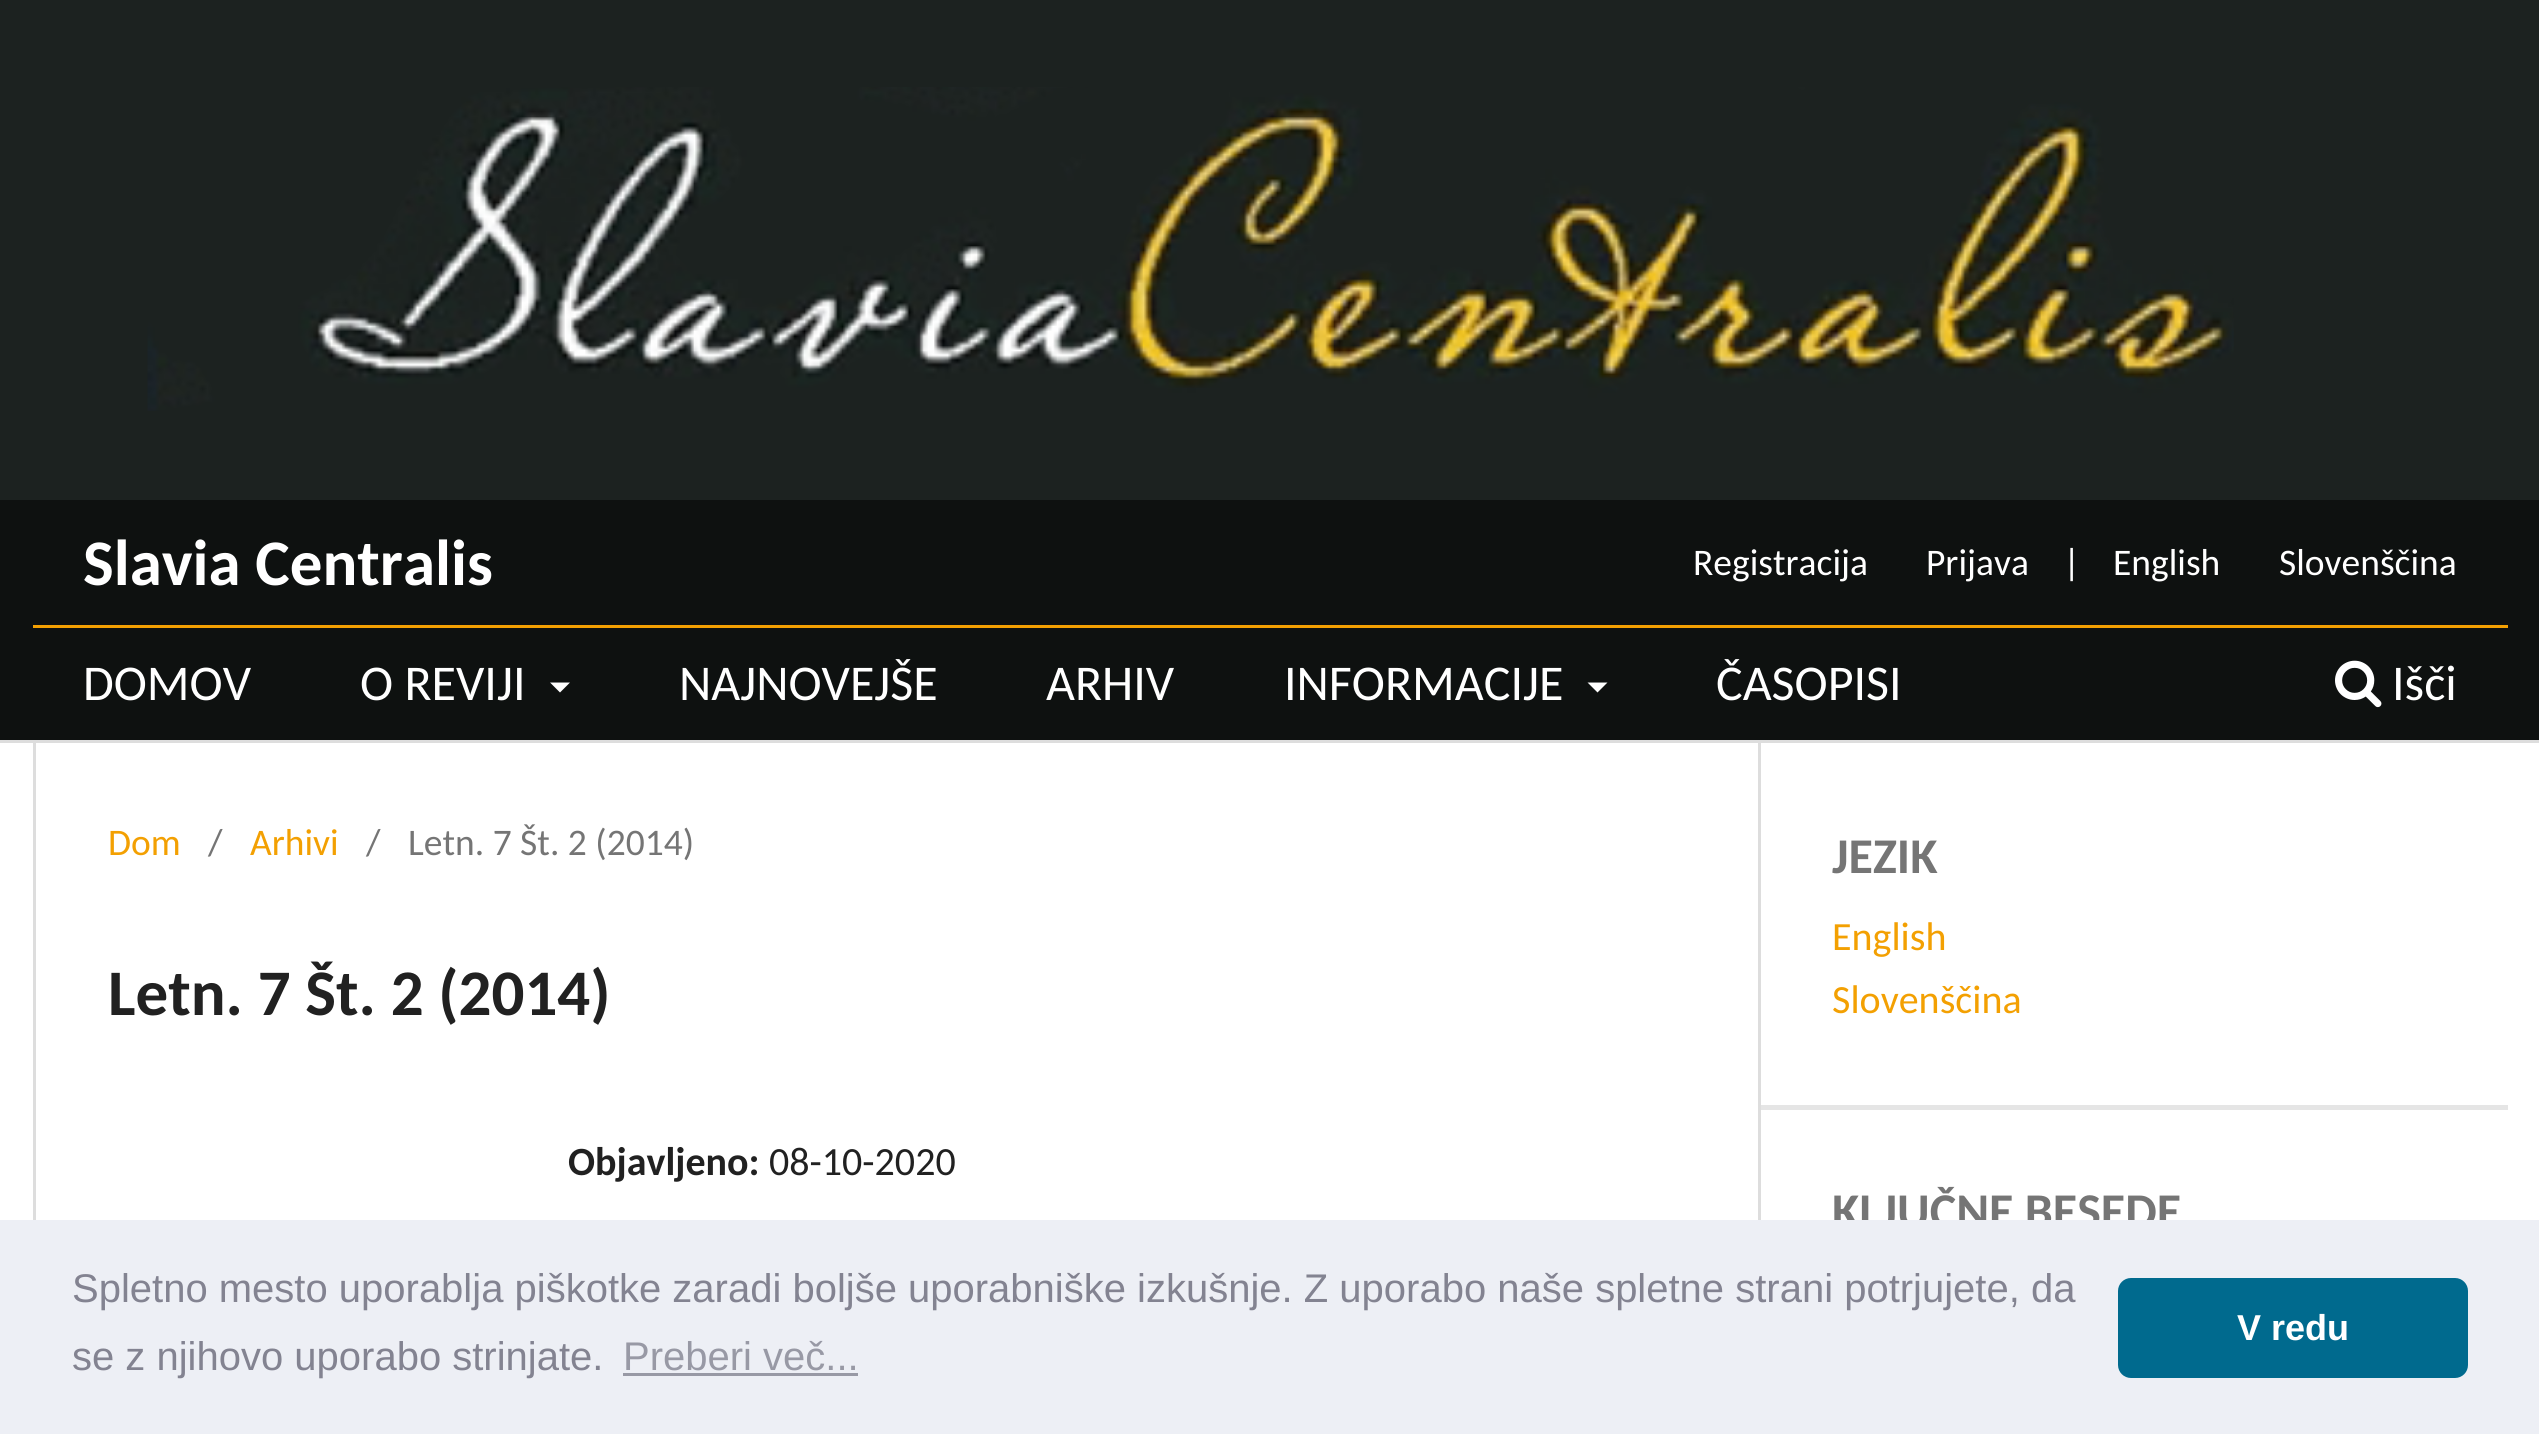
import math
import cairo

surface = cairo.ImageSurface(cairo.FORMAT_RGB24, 2539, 1434)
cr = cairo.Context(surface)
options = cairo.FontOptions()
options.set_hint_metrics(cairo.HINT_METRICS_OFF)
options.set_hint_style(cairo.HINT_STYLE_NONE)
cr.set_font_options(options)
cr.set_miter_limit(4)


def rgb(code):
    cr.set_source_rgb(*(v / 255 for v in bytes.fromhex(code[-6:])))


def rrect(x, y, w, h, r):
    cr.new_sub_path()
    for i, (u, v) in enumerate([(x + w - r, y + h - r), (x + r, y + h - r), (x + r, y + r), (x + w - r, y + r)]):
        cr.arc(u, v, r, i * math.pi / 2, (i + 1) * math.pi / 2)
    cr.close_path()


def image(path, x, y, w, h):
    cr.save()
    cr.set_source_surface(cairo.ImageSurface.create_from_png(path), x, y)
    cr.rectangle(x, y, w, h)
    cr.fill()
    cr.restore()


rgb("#ffffff")
cr.paint()
rgb("#1c2220")
cr.rectangle(0, 0, 2539, 500)
cr.fill()
image("img/1.png", 147, 87, 2087, 324)
for x, y, w, h, color in [
    (0, 500, 2539, 240, "#0e1110"),
    (0, 740, 2539, 3, "#dddddd"),
    (33, 625, 2475, 3, "#f3a002"),
]:
    rgb(color)
    cr.rectangle(x, y, w, h)
    cr.fill()
rgb("#ffffff")
cr.new_path()
cr.move_to(550, 682.5)
cr.line_to(570, 682.5)
cr.line_to(560, 692.5)
cr.close_path()
cr.fill()
cr.new_path()
cr.move_to(1587.5, 682.5)
cr.line_to(1607.5, 682.5)
cr.line_to(1597.5, 692.5)
cr.close_path()
cr.fill()
image("img/2.png", 2335, 660, 47, 48)
for x, y, w, h, color in [
    (33, 743, 3, 477, "#dddddd"),
    (1758, 1105, 750, 5, "#e5e5e5"),
    (1758, 743, 3, 477, "#dddddd"),
]:
    rgb(color)
    cr.rectangle(x, y, w, h)
    cr.fill()
cr.select_font_face("Carlito", cairo.FONT_SLANT_NORMAL, cairo.FONT_WEIGHT_BOLD)
cr.set_font_size(65)
rgb("#ffffff")
cr.move_to(83, 585)
cr.show_text("Slavia Centralis")
cr.select_font_face("Carlito")
cr.set_font_size(37.5)
for x, y, s in [
    (1693, 575, "Registracija"),
    (1926, 575, "Prijava"),
    (2063, 575, "|"),
    (2113, 575, "English"),
    (2279, 575, "Slovenščina"),
]:
    cr.move_to(x, y)
    cr.show_text(s)
cr.set_font_size(50)
for x, y, s in [
    (83, 700, "DOMOV"),
    (360, 700, "O REVIJI"),
    (679, 700, "NAJNOVEJŠE"),
    (1046, 700, "ARHIV"),
    (1284, 700, "INFORMACIJE"),
    (1716, 700, "ČASOPISI"),
    (2392, 700, "Išči"),
]:
    cr.move_to(x, y)
    cr.show_text(s)
cr.set_font_size(37.5)
rgb("#f3a002")
cr.move_to(108, 855)
cr.show_text("Dom")
rgb("#757575")
cr.move_to(208, 855)
cr.show_text("/")
rgb("#f3a002")
cr.move_to(250, 855)
cr.show_text("Arhivi")
rgb("#757575")
cr.move_to(366, 855)
cr.show_text("/")
cr.move_to(408, 855)
cr.show_text("Letn. 7 Št. 2 (2014)")
cr.select_font_face("Carlito", cairo.FONT_SLANT_NORMAL, cairo.FONT_WEIGHT_BOLD)
cr.set_font_size(65)
rgb("#212121")
cr.move_to(108, 1015)
cr.show_text("Letn. 7 Št. 2 (2014)")
cr.set_font_size(40)
cr.move_to(568, 1175)
cr.show_text("Objavljeno:")
cr.select_font_face("Carlito")
cr.move_to(769, 1175)
cr.show_text("08-10-2020")
cr.select_font_face("Carlito", cairo.FONT_SLANT_NORMAL, cairo.FONT_WEIGHT_BOLD)
cr.set_font_size(50)
rgb("#757575")
cr.move_to(1832, 873)
cr.show_text("JEZIK")
cr.select_font_face("Carlito")
cr.set_font_size(40)
rgb("#f3a002")
cr.move_to(1832, 950)
cr.show_text("English")
cr.move_to(1832, 1013)
cr.show_text("Slovenščina")
cr.select_font_face("Carlito", cairo.FONT_SLANT_NORMAL, cairo.FONT_WEIGHT_BOLD)
cr.set_font_size(50)
rgb("#757575")
cr.move_to(1832, 1228)
cr.show_text("KLJUČNE BESEDE")
rgb("#edeff5")
cr.rectangle(0, 1220, 2539, 214)
cr.fill()
cr.select_font_face("Liberation Sans")
cr.set_font_size(40)
rgb("#838391")
cr.move_to(72, 1302)
cr.show_text("Spletno mesto uporablja piškotke zaradi boljše uporabniške izkušnje. Z uporabo naše spletne strani potrjujete, da")
cr.move_to(72, 1370)
cr.show_text("se z njihovo uporabo strinjate.")
rgb("#9899a5")
cr.move_to(623, 1370)
cr.show_text("Preberi več...")
cr.rectangle(623, 1373, 235, 3)
cr.fill()
rgb("#006a8e")
rrect(2118, 1278, 350, 100, 13)
cr.fill()
cr.select_font_face("Liberation Sans", cairo.FONT_SLANT_NORMAL, cairo.FONT_WEIGHT_BOLD)
cr.set_font_size(36)
rgb("#ffffff")
cr.move_to(2237, 1340)
cr.show_text("V redu")
surface.write_to_png("page.png")
